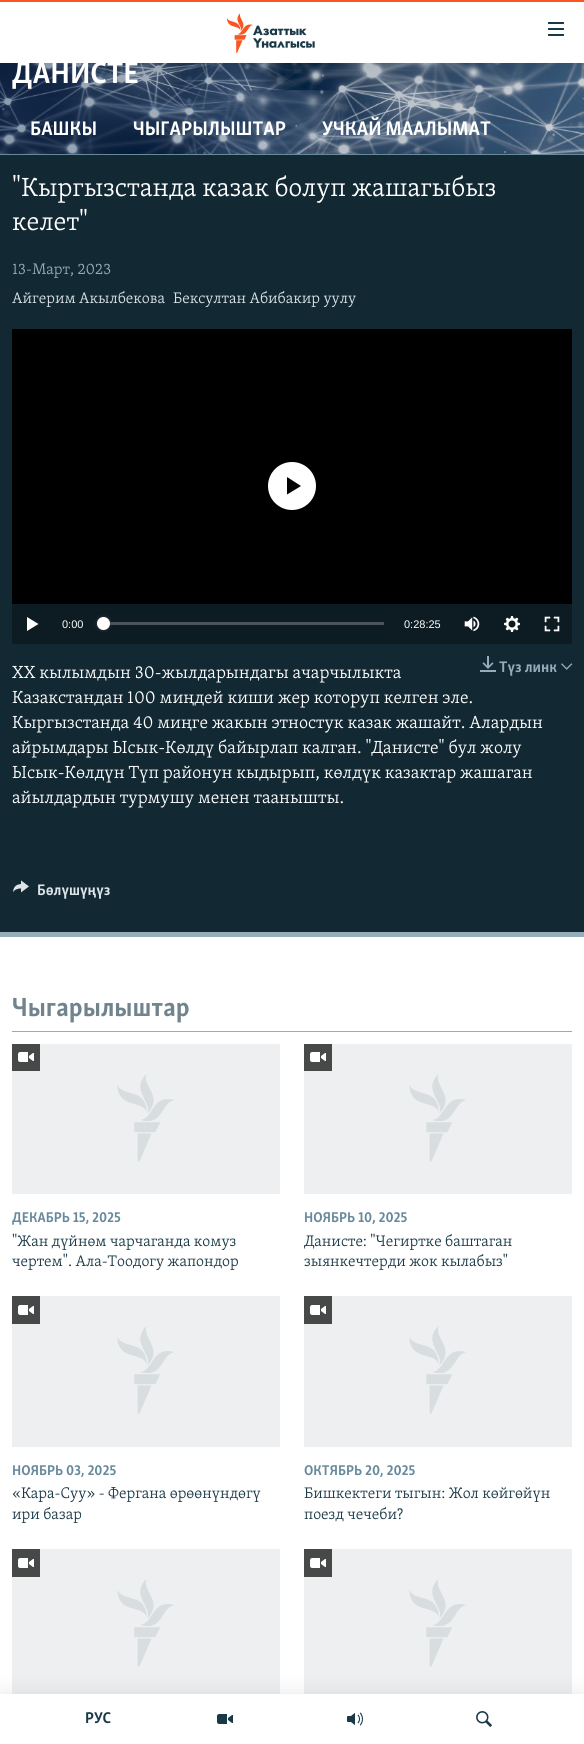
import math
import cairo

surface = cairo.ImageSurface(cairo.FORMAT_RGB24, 584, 1744)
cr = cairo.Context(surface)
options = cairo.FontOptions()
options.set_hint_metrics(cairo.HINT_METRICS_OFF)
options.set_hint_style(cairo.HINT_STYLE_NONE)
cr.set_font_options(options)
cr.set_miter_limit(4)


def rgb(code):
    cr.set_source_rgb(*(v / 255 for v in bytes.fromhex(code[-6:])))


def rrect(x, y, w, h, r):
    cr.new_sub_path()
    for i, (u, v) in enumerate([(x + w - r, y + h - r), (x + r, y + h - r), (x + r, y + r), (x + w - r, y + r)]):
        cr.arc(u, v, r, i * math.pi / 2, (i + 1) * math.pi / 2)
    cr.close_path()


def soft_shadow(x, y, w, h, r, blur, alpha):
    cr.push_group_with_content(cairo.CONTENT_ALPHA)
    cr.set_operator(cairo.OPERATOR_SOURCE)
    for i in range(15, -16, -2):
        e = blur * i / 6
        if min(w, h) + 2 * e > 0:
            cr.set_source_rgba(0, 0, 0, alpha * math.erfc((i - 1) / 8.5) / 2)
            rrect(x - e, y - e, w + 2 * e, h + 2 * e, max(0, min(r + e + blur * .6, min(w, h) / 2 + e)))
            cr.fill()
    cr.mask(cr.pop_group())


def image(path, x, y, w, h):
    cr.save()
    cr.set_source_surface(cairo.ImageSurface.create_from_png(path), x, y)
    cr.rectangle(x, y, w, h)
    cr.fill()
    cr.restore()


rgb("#ffffff")
cr.paint()
image("img/1.png", 0, 63, 584, 91)
for x, y, w, h, color in [
    (0, 155, 584, 777, "#122832"),
    (0, 154, 584, 1, "#678a9b"),
    (0, 932, 584, 5, "#95adb9"),
    (12, 329, 560, 275, "#000000"),
]:
    rgb(color)
    cr.rectangle(x, y, w, h)
    cr.fill()
rgb("#ffffff")
cr.arc(292, 486, 24, 0, 2 * math.pi)
cr.fill()
rgb("#000000")
cr.new_path()
cr.move_to(287, 494.5)
cr.line_to(301, 486)
cr.line_to(287, 477)
cr.close_path()
cr.fill()
rgb("#0d1b22")
cr.rectangle(12, 604, 560, 40)
cr.fill()
rgb("#ffffff")
cr.new_path()
cr.move_to(27, 631)
cr.line_to(38.5, 624)
cr.line_to(27, 617)
cr.close_path()
cr.fill()
rgb("#4a5459")
cr.rectangle(103, 622, 281, 3)
cr.fill()
rgb("#414144")
soft_shadow(97, 617, 13, 13, 6.5, 1.5, 1)
rgb("#ffffff")
cr.arc(103.5, 623.5, 6.5, 0, 2 * math.pi)
cr.fill()
image("img/2.png", 464, 616, 16, 16)
image("img/3.png", 504, 616, 16, 16)
image("img/4.png", 544, 616, 16, 16)
image("img/5.png", 480, 656, 16, 16)
image("img/6.png", 561, 663, 12, 7)
image("img/7.png", 13, 880, 16, 13)
rgb("#95adb9")
cr.rectangle(12, 1031, 560, 1)
cr.fill()
rgb("#edeff0")
cr.rectangle(12, 1044, 268, 150)
cr.fill()
image("img/8.png", 117, 1074, 57, 88)
rgb("#474848")
cr.rectangle(12, 1044, 28, 27)
cr.fill()
image("img/9.png", 18, 1052, 16, 10)
rgb("#edeff0")
cr.rectangle(304, 1044, 268, 150)
cr.fill()
image("img/8.png", 409, 1074, 57, 88)
rgb("#474848")
cr.rectangle(304, 1044, 28, 27)
cr.fill()
image("img/9.png", 310, 1052, 16, 10)
rgb("#edeff0")
cr.rectangle(12, 1296, 268, 151)
cr.fill()
image("img/8.png", 117, 1326, 57, 88)
rgb("#474848")
cr.rectangle(12, 1296, 28, 28)
cr.fill()
image("img/9.png", 18, 1305, 16, 10)
rgb("#edeff0")
cr.rectangle(304, 1296, 268, 151)
cr.fill()
image("img/8.png", 409, 1326, 57, 88)
rgb("#474848")
cr.rectangle(304, 1296, 28, 28)
cr.fill()
image("img/9.png", 310, 1305, 16, 10)
rgb("#edeff0")
cr.rectangle(12, 1549, 268, 145)
cr.fill()
image("img/8.png", 117, 1579, 57, 88)
rgb("#474848")
cr.rectangle(12, 1549, 28, 28)
cr.fill()
image("img/9.png", 18, 1558, 16, 10)
rgb("#edeff0")
cr.rectangle(304, 1549, 268, 145)
cr.fill()
image("img/8.png", 409, 1579, 57, 88)
rgb("#474848")
cr.rectangle(304, 1549, 28, 28)
cr.fill()
image("img/9.png", 310, 1558, 16, 10)
rgb("#000000")
soft_shadow(0, 0, 584, 63, 0, 10, 0.1)
rgb("#ffffff")
cr.rectangle(0, 2, 584, 61)
cr.fill()
rgb("#fa5420")
cr.rectangle(0, 0, 584, 2)
cr.fill()
image("img/10.png", 227, 13, 88, 40)
image("img/11.png", 548, 22, 16, 14)
rgb("#000000")
soft_shadow(0, 1694, 584, 50, 0, 10, 0.1)
rgb("#ffffff")
cr.rectangle(0, 1694, 584, 50)
cr.fill()
image("img/12.png", 217, 1714, 16, 10)
image("img/13.png", 347, 1712, 16, 14)
image("img/14.png", 476, 1711, 16, 16)
cr.select_font_face("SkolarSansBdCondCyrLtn", cairo.FONT_SLANT_NORMAL, cairo.FONT_WEIGHT_BOLD)
cr.set_font_size(31)
cr.move_to(12, 83)
cr.show_text("ДАНИСТЕ")
cr.set_font_size(20.25)
for x, y, s in [
    (30, 135, "БАШКЫ"),
    (133, 135, "ЧЫГАРЫЛЫШТАР"),
    (322, 135, "УЧКАЙ МААЛЫМАТ"),
]:
    cr.move_to(x, y)
    cr.show_text(s)
cr.select_font_face("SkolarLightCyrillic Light")
cr.set_font_size(27)
cr.move_to(12, 196)
cr.show_text("\"Кыргызстанда казак болуп жашагыбыз")
cr.move_to(12, 230)
cr.show_text("келет\"")
cr.set_font_size(15.75)
rgb("#95adb9")
cr.move_to(12, 274)
cr.show_text("13-Март, 2023")
rgb("#dce4e8")
cr.move_to(12, 303)
cr.show_text("Айгерим Акылбекова")
cr.move_to(173, 303)
cr.show_text("Бексултан Абибакир уулу")
cr.select_font_face("Liberation Sans")
cr.set_font_size(11)
rgb("#ffffff")
cr.move_to(62, 628)
cr.show_text("0:00")
cr.move_to(404, 628)
cr.show_text("0:28:25")
cr.select_font_face("SkolarSansBdCondCyrLtn", cairo.FONT_SLANT_NORMAL, cairo.FONT_WEIGHT_BOLD)
cr.set_font_size(15.75)
rgb("#95adb9")
cr.move_to(499, 672)
cr.show_text("Түз линк")
cr.select_font_face("SkolarLightCyrillic Light")
cr.set_font_size(18)
rgb("#ffffff")
for x, y, s in [
    (12, 678, "XX кылымдын 30-жылдарындагы ачарчылыкта"),
    (12, 703, "Казакстандан 100 миңдей киши жер которуп келген эле."),
    (12, 728, "Кыргызстанда 40 миңге жакын этностук казак жашайт. Алардын"),
    (12, 753, "айрымдары Ысык-Көлдү байырлап калган. \"Данисте\" бул жолу"),
    (12, 778, "Ысык-Көлдүн Түп районун кыдырып, көлдүк казактар жашаган"),
    (12, 803, "айылдардын турмушу менен таанышты."),
]:
    cr.move_to(x, y)
    cr.show_text(s)
cr.select_font_face("SkolarSansBdCondCyrLtn", cairo.FONT_SLANT_NORMAL, cairo.FONT_WEIGHT_BOLD)
cr.set_font_size(15.75)
rgb("#dce4e8")
cr.move_to(37, 895)
cr.show_text("Бөлүшүңүз")
cr.set_font_size(27)
rgb("#71838d")
cr.move_to(12, 1016)
cr.show_text("Чыгарылыштар")
cr.set_font_size(14.5)
rgb("#678a9b")
cr.move_to(12, 1222)
cr.show_text("ДЕКАБРЬ 15, 2025")
cr.select_font_face("SkolarLightCyrillic Light")
cr.set_font_size(15.75)
rgb("#1a3948")
cr.move_to(12, 1246)
cr.show_text("\"Жан дүйнөм чарчаганда комуз")
cr.move_to(12, 1266)
cr.show_text("чертем\". Ала-Тоодогу жапондор")
cr.select_font_face("SkolarSansBdCondCyrLtn", cairo.FONT_SLANT_NORMAL, cairo.FONT_WEIGHT_BOLD)
cr.set_font_size(14.5)
rgb("#678a9b")
cr.move_to(304, 1222)
cr.show_text("НОЯБРЬ 10, 2025")
cr.select_font_face("SkolarLightCyrillic Light")
cr.set_font_size(15.75)
rgb("#1a3948")
cr.move_to(304, 1246)
cr.show_text("Данисте: \"Чегиртке баштаган")
cr.move_to(304, 1266)
cr.show_text("зыянкечтерди жок кылабыз\"")
cr.select_font_face("SkolarSansBdCondCyrLtn", cairo.FONT_SLANT_NORMAL, cairo.FONT_WEIGHT_BOLD)
cr.set_font_size(14.5)
rgb("#678a9b")
cr.move_to(12, 1475)
cr.show_text("НОЯБРЬ 03, 2025")
cr.select_font_face("SkolarLightCyrillic Light")
cr.set_font_size(15.75)
rgb("#1a3948")
cr.move_to(12, 1498)
cr.show_text("«Кара-Суу» - Фергана өрөөнүндөгү")
cr.move_to(12, 1519)
cr.show_text("ири базар")
cr.select_font_face("SkolarSansBdCondCyrLtn", cairo.FONT_SLANT_NORMAL, cairo.FONT_WEIGHT_BOLD)
cr.set_font_size(14.5)
rgb("#678a9b")
cr.move_to(304, 1475)
cr.show_text("ОКТЯБРЬ 20, 2025")
cr.select_font_face("SkolarLightCyrillic Light")
cr.set_font_size(15.75)
rgb("#1a3948")
cr.move_to(304, 1498)
cr.show_text("Бишкектеги тыгын: Жол көйгөйүн")
cr.move_to(304, 1519)
cr.show_text("поезд чечеби?")
cr.select_font_face("SkolarSansBdCondCyrLtn", cairo.FONT_SLANT_NORMAL, cairo.FONT_WEIGHT_BOLD)
cr.set_font_size(16)
cr.move_to(85, 1723)
cr.show_text("РУС")
surface.write_to_png("page.png")
